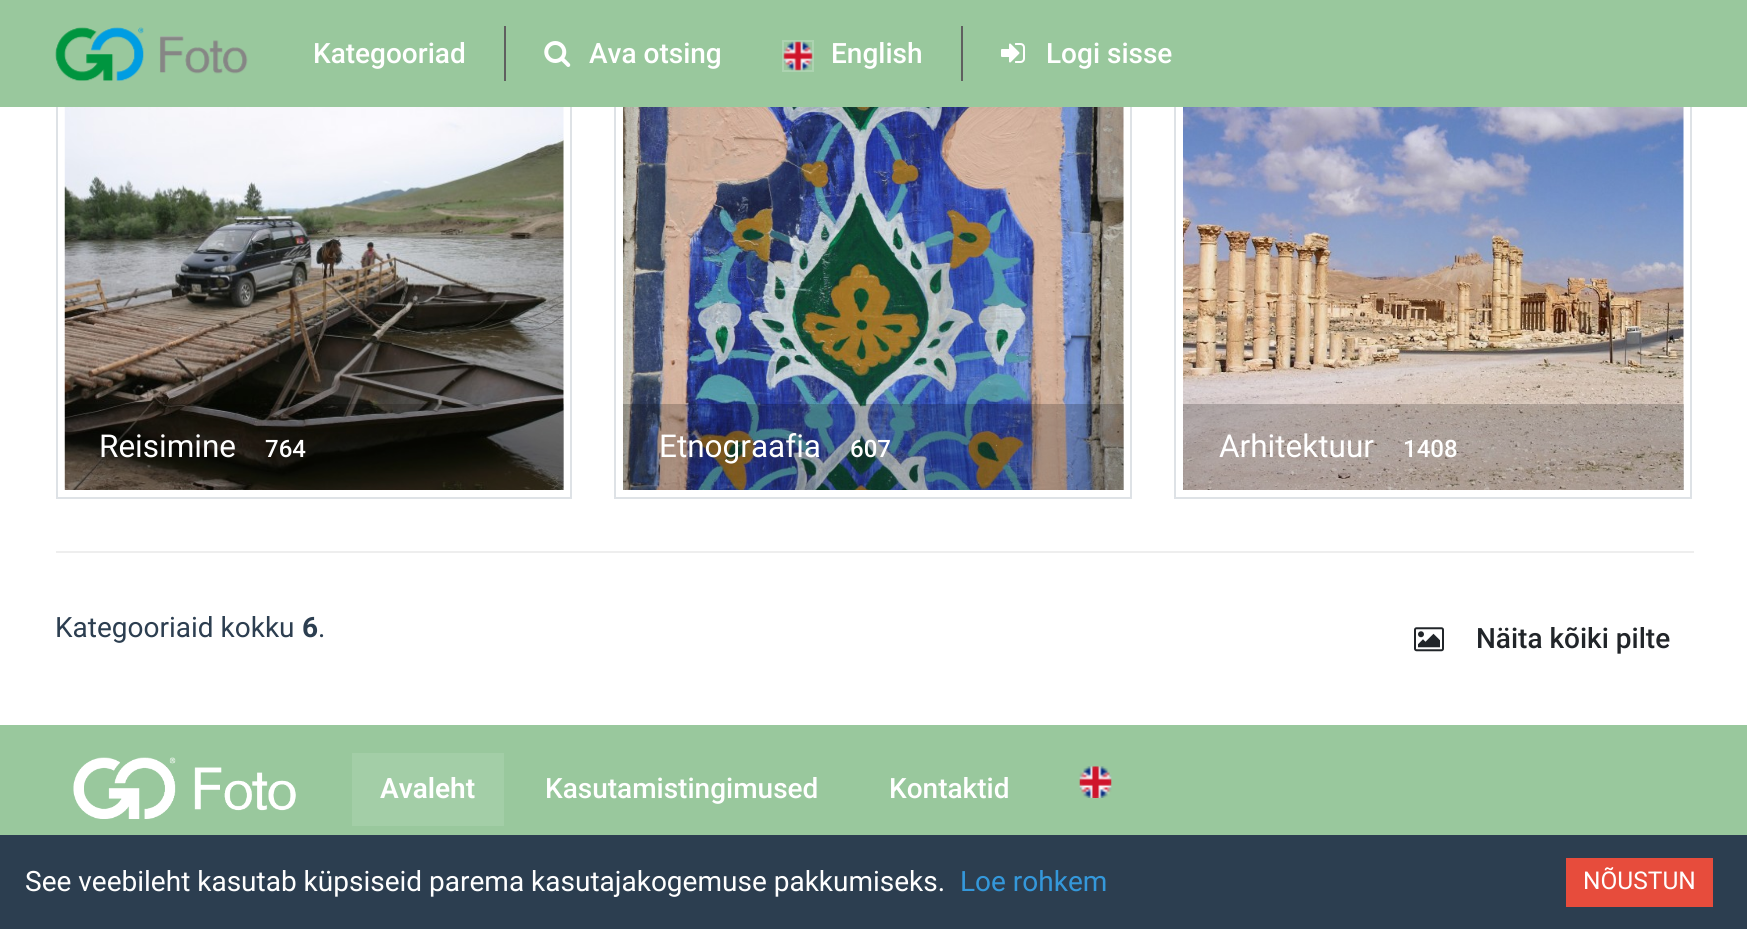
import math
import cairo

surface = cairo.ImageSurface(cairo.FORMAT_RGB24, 1747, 929)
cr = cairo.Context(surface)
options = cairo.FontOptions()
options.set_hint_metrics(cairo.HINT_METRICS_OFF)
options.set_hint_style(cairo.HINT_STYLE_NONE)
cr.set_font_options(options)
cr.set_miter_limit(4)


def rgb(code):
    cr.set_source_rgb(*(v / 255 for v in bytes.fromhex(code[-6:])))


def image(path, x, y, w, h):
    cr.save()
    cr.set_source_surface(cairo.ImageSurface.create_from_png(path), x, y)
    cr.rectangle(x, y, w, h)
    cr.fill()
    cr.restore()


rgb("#ffffff")
cr.paint()
cr.rectangle(57, 62, 514, 436)
rgb("#dee2e6")
cr.stroke()
cr.rectangle(615, 62, 516, 436)
cr.stroke()
cr.rectangle(1175, 62, 516, 436)
cr.stroke()
rgb("#99c89d")
cr.rectangle(0, 0, 1747, 107)
cr.fill()
image("img/1.png", 55, 27, 193, 54)
rgb("#5f5f5f")
cr.rectangle(504, 26, 2, 55)
cr.fill()
image("img/2.png", 544, 41, 27, 26)
cr.rectangle(783, 41, 30, 30)
rgb("#add3b1")
cr.stroke()
image("img/3.png", 783, 41, 30, 30)
rgb("#5f5f5f")
cr.rectangle(961, 26, 2, 55)
cr.fill()
image("img/4.png", 1001, 43, 24, 20)
image("img/5.png", 64, 107, 500, 383)
cr.set_source_rgba(0, 0, 0, 0.2)
cr.rectangle(65, 404, 499, 86)
cr.fill()
image("img/6.png", 623, 107, 501, 383)
cr.rectangle(623, 404, 501, 86)
cr.fill()
image("img/7.png", 1183, 107, 501, 383)
cr.rectangle(1183, 404, 501, 86)
cr.fill()
rgb("#eeeeee")
cr.rectangle(56, 551, 1638, 2)
cr.fill()
image("img/8.png", 1414, 627, 30, 25)
rgb("#99c89d")
cr.rectangle(0, 725, 1747, 110)
cr.fill()
image("img/9.png", 73, 757, 223, 62)
rgb("#a3cea7")
cr.rectangle(352, 753, 152, 73)
cr.fill()
image("img/10.png", 1079, 766, 33, 32)
rgb("#2c3e50")
cr.rectangle(0, 835, 1747, 94)
cr.fill()
rgb("#e74c3c")
cr.rectangle(1566, 858, 147, 49)
cr.fill()
cr.select_font_face("Roboto Medium")
cr.set_font_size(28)
rgb("#ffffff")
for x, y, s in [
    (313, 63, "Kategooriad"),
    (589, 63, "Ava otsing"),
    (831, 63, "English"),
    (1046, 63, "Logi sisse"),
]:
    cr.move_to(x, y)
    cr.show_text(s)
cr.select_font_face("Roboto")
cr.set_font_size(31.5)
cr.move_to(99, 457)
cr.show_text("Reisimine")
cr.select_font_face("Roboto Medium")
cr.set_font_size(24)
cr.move_to(265, 457)
cr.show_text("764")
cr.select_font_face("Roboto")
cr.set_font_size(31.5)
cr.move_to(659, 457)
cr.show_text("Etnograafia")
cr.select_font_face("Roboto Medium")
cr.set_font_size(24)
cr.move_to(850, 457)
cr.show_text("607")
cr.select_font_face("Roboto")
cr.set_font_size(31.5)
cr.move_to(1219, 457)
cr.show_text("Arhitektuur")
cr.select_font_face("Roboto Medium")
cr.set_font_size(24)
cr.move_to(1403, 457)
cr.show_text("1408")
cr.select_font_face("Roboto")
cr.set_font_size(28)
rgb("#2c3e50")
cr.move_to(55, 637)
cr.show_text("Kategooriaid kokku")
cr.select_font_face("Roboto", cairo.FONT_SLANT_NORMAL, cairo.FONT_WEIGHT_BOLD)
cr.move_to(302, 637)
cr.show_text("6")
cr.select_font_face("Roboto")
cr.move_to(318, 637)
cr.show_text(".")
cr.select_font_face("Roboto Medium")
rgb("#212529")
cr.move_to(1476, 648)
cr.show_text("Näita kõiki pilte")
cr.select_font_face("Roboto SemiBold")
rgb("#ffffff")
cr.move_to(380, 798)
cr.show_text("Avaleht")
cr.select_font_face("Roboto Medium")
cr.move_to(545, 798)
cr.show_text("Kasutamistingimused")
cr.move_to(889, 798)
cr.show_text("Kontaktid")
cr.select_font_face("Roboto")
cr.move_to(25, 891)
cr.show_text("See veebileht kasutab küpsiseid parema kasutajakogemuse pakkumiseks.")
rgb("#3498db")
cr.move_to(960, 891)
cr.show_text("Loe rohkem")
cr.set_font_size(24.5)
rgb("#ffffff")
cr.move_to(1583, 889)
cr.show_text("NÕUSTUN")
surface.write_to_png("page.png")
